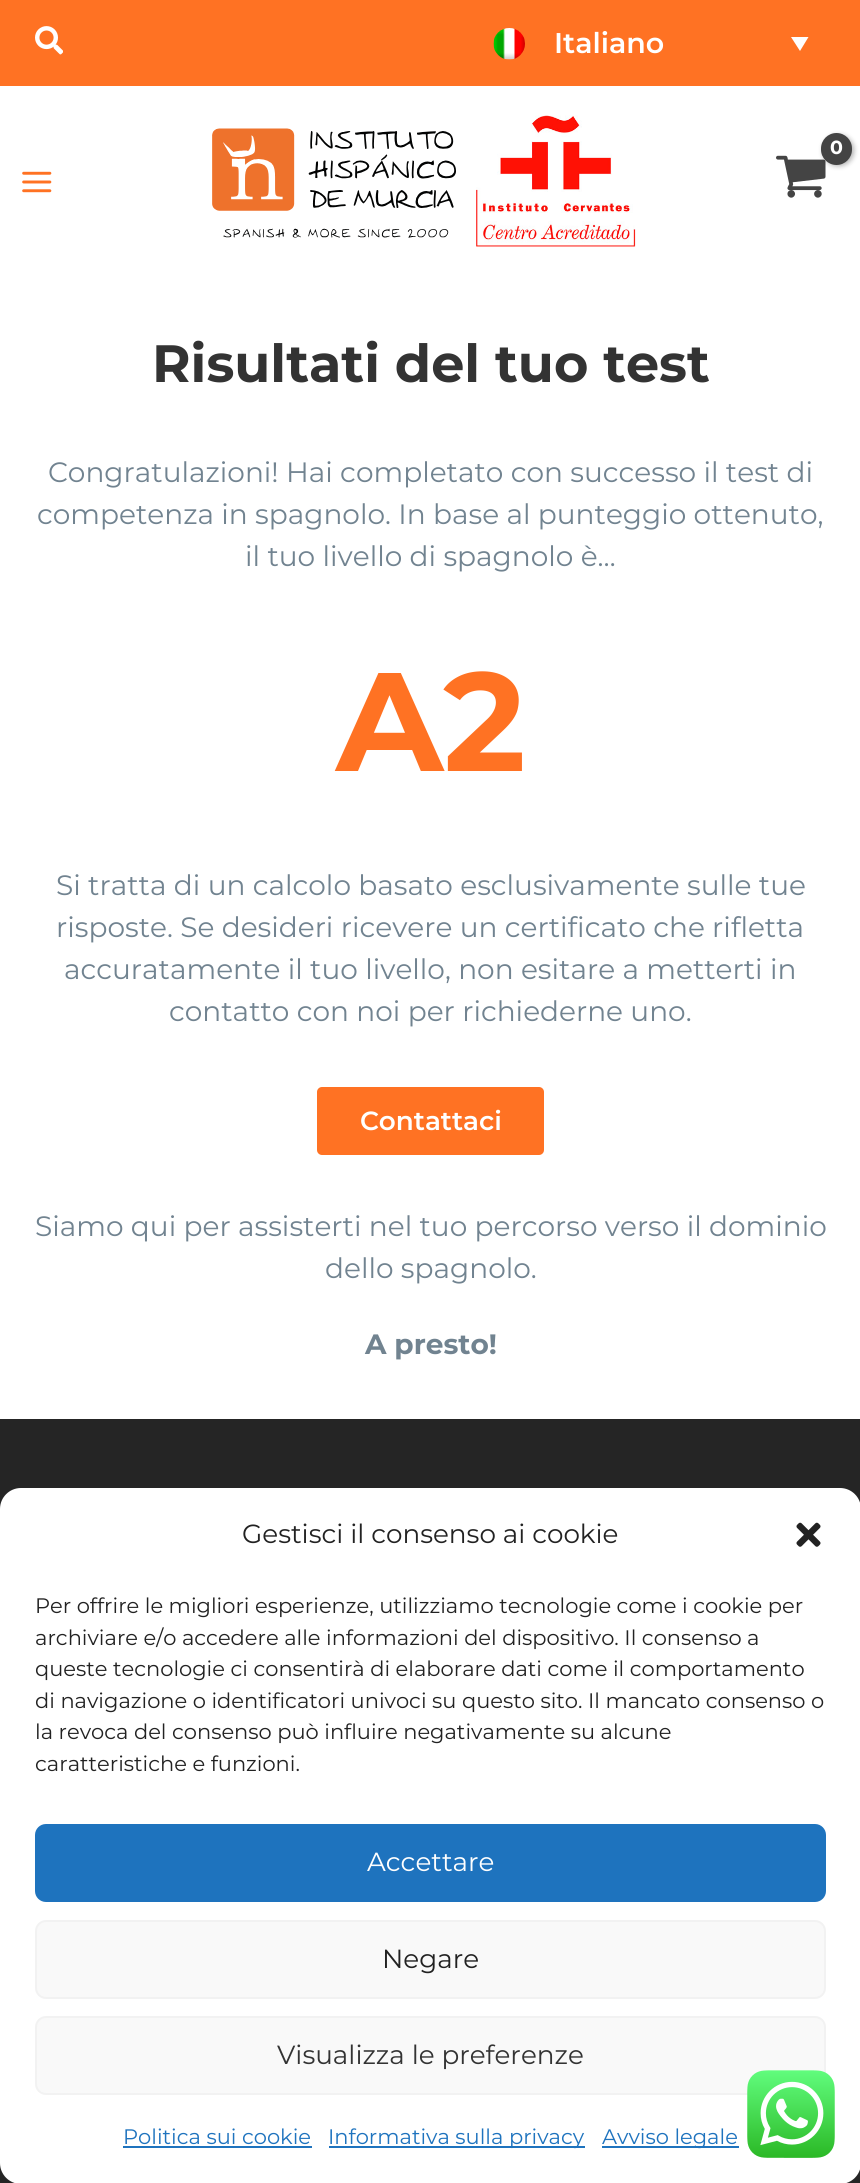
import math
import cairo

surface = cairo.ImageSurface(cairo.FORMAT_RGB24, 860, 2183)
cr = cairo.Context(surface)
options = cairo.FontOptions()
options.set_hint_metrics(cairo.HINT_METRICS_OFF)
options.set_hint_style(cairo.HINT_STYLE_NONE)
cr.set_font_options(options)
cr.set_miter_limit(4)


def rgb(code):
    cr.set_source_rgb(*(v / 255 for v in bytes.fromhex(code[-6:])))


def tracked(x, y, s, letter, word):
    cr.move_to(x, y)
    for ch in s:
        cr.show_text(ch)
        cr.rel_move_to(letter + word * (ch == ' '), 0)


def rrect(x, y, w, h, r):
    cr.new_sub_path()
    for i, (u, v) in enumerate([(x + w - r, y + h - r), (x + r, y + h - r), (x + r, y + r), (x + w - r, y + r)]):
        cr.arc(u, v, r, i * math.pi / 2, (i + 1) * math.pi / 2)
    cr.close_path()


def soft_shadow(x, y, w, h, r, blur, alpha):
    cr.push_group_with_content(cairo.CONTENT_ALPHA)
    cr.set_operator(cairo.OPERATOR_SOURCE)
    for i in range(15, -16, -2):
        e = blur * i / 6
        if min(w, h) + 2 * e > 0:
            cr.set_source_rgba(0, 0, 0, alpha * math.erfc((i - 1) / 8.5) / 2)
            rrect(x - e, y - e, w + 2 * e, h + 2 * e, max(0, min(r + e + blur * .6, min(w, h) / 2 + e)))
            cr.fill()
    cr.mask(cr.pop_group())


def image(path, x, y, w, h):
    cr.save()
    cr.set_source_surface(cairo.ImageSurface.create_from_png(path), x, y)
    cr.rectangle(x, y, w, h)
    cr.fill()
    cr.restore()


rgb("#ffffff")
cr.paint()
rgb("#ff7223")
cr.rectangle(0, 0, 860, 86)
cr.fill()
image("img/1.png", 35, 26, 28, 29)
image("img/2.png", 493, 28, 32, 32)
rgb("#ffffff")
cr.new_path()
cr.move_to(791, 37)
cr.line_to(808.5, 37)
cr.line_to(800, 51)
cr.close_path()
cr.fill()
image("img/3.png", 212, 128, 244, 110)
image("img/4.png", 476, 115, 160, 132)
image("img/5.png", 776, 155, 50, 43)
rgb("#000000")
soft_shadow(823, 135, 31, 31, 15.5, 2.5, 0.3)
rgb("#444444")
rrect(821, 133, 31, 32, 15.5)
cr.fill()
image("img/6.png", 22, 171, 30, 22)
rgb("#ff7223")
rrect(317, 1087, 227, 68, 5)
cr.fill()
rgb("#252525")
cr.rectangle(0, 1419, 860, 764)
cr.fill()
rgb("#ffffff")
rrect(0, 1488, 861, 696, 21)
cr.fill()
image("img/7.png", 796, 1522, 25, 25)
rgb("#1e73be")
rrect(36, 1825, 789, 76, 10)
cr.fill_preserve()
cr.stroke()
rgb("#f9f9f9")
rrect(36, 1921, 789, 77, 10)
cr.fill_preserve()
rgb("#f2f2f2")
cr.stroke()
rgb("#f9f9f9")
rrect(36, 2017, 789, 77, 10)
cr.fill_preserve()
rgb("#f2f2f2")
cr.stroke()
for x, y, w, h, color in [
    (123, 2146, 189, 2, "#1e73be"),
    (329, 2146, 256, 2, "#1e73be"),
    (602, 2146, 137, 2, "#1e73be"),
]:
    rgb(color)
    cr.rectangle(x, y, w, h)
    cr.fill()
image("img/8.png", 747, 2070, 88, 88)
cr.select_font_face("Montserrat SemiBold")
cr.set_font_size(28.5)
rgb("#ffffff")
cr.move_to(554, 53)
cr.show_text("Italiano")
cr.select_font_face("Montserrat", cairo.FONT_SLANT_NORMAL, cairo.FONT_WEIGHT_BOLD)
cr.set_font_size(19)
tracked(830, 154, "0", -1, 0)
cr.set_font_size(52.5)
rgb("#333333")
cr.move_to(152, 382)
cr.show_text("Risultati del tuo test")
cr.select_font_face("Montserrat")
cr.set_font_size(28)
rgb("#718390")
for x, y, s in [
    (48, 482, "Congratulazioni! Hai completato con successo il test di"),
    (37, 524, "competenza in spagnolo. In base al punteggio ottenuto,"),
    (245, 566, "il tuo livello di spagnolo è…"),
]:
    cr.move_to(x, y)
    cr.show_text(s)
cr.select_font_face("Montserrat", cairo.FONT_SLANT_NORMAL, cairo.FONT_WEIGHT_BOLD)
cr.set_font_size(140)
rgb("#ff7223")
cr.move_to(336, 771)
cr.show_text("A2")
cr.select_font_face("Montserrat")
cr.set_font_size(28)
rgb("#718390")
for x, y, s in [
    (56, 895, "Si tratta di un calcolo basato esclusivamente sulle tue"),
    (56, 937, "risposte. Se desideri ricevere un certificato che rifletta"),
    (64, 979, "accuratamente il tuo livello, non esitare a metterti in"),
    (169, 1021, "contatto con noi per richiederne uno."),
]:
    cr.move_to(x, y)
    cr.show_text(s)
cr.select_font_face("Montserrat SemiBold")
cr.set_font_size(26.25)
rgb("#ffffff")
cr.move_to(360, 1130)
cr.show_text("Contattaci")
cr.select_font_face("Montserrat")
cr.set_font_size(28)
rgb("#718390")
cr.move_to(35, 1236)
cr.show_text("Siamo qui per assisterti nel tuo percorso verso il dominio")
cr.move_to(325, 1278)
cr.show_text("dello spagnolo.")
cr.select_font_face("Montserrat", cairo.FONT_SLANT_NORMAL, cairo.FONT_WEIGHT_BOLD)
cr.move_to(365, 1354)
cr.show_text("A presto!")
cr.select_font_face("Montserrat")
cr.set_font_size(26.25)
rgb("#222222")
cr.move_to(242, 1543)
cr.show_text("Gestisci il consenso ai cookie")
cr.set_font_size(21)
for x, y, s in [
    (35, 1613, "Per offrire le migliori esperienze, utilizziamo tecnologie come i cookie per"),
    (35, 1645, "archiviare e/o accedere alle informazioni del dispositivo. Il consenso a"),
    (35, 1676, "queste tecnologie ci consentirà di elaborare dati come il comportamento"),
    (35, 1708, "di navigazione o identificatori univoci su questo sito. Il mancato consenso o"),
    (35, 1739, "la revoca del consenso può influire negativamente su alcune"),
    (35, 1771, "caratteristiche e funzioni."),
]:
    cr.move_to(x, y)
    cr.show_text(s)
cr.set_font_size(26.25)
rgb("#ffffff")
cr.move_to(367, 1871)
cr.show_text("Accettare")
rgb("#222222")
cr.move_to(382, 1968)
cr.show_text("Negare")
rgb("#333333")
cr.move_to(277, 2064)
cr.show_text("Visualizza le preferenze")
cr.set_font_size(21)
rgb("#1e73be")
for x, y, s in [
    (123, 2144, "Politica sui cookie"),
    (328, 2144, "Informativa sulla privacy"),
    (602, 2144, "Avviso legale"),
]:
    cr.move_to(x, y)
    cr.show_text(s)
surface.write_to_png("page.png")
